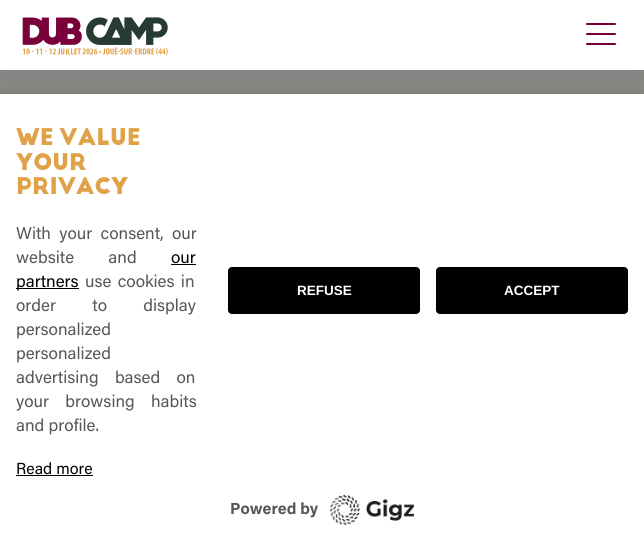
import math
import cairo

surface = cairo.ImageSurface(cairo.FORMAT_RGB24, 644, 541)
cr = cairo.Context(surface)
options = cairo.FontOptions()
options.set_hint_metrics(cairo.HINT_METRICS_OFF)
options.set_hint_style(cairo.HINT_STYLE_NONE)
cr.set_font_options(options)
cr.set_miter_limit(4)


def rgb(code):
    cr.set_source_rgb(*(v / 255 for v in bytes.fromhex(code[-6:])))


def tracked(x, y, s, letter, word):
    cr.move_to(x, y)
    for ch in s:
        cr.show_text(ch)
        cr.rel_move_to(letter + word * (ch == ' '), 0)


def rrect(x, y, w, h, r):
    cr.new_sub_path()
    for i, (u, v) in enumerate([(x + w - r, y + h - r), (x + r, y + h - r), (x + r, y + r), (x + w - r, y + r)]):
        cr.arc(u, v, r, i * math.pi / 2, (i + 1) * math.pi / 2)
    cr.close_path()


def soft_shadow(x, y, w, h, r, blur, alpha):
    cr.push_group_with_content(cairo.CONTENT_ALPHA)
    cr.set_operator(cairo.OPERATOR_SOURCE)
    for i in range(15, -16, -2):
        e = blur * i / 6
        if min(w, h) + 2 * e > 0:
            cr.set_source_rgba(0, 0, 0, alpha * math.erfc((i - 1) / 8.5) / 2)
            rrect(x - e, y - e, w + 2 * e, h + 2 * e, max(0, min(r + e + blur * .6, min(w, h) / 2 + e)))
            cr.fill()
    cr.mask(cr.pop_group())


def image(path, x, y, w, h):
    cr.save()
    cr.set_source_surface(cairo.ImageSurface.create_from_png(path), x, y)
    cr.rectangle(x, y, w, h)
    cr.fill()
    cr.restore()


rgb("#918f8c")
cr.paint()
rgb("#000000")
soft_shadow(0, 94, 644, 447, 0, 15, 0.2)
rgb("#ffffff")
cr.rectangle(0, 94, 644, 447)
cr.fill()
rgb("#2d2d2d")
soft_shadow(-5, -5, 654, 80, 0, 10, 0.15)
rgb("#ffffff")
cr.rectangle(0, 0, 644, 70)
cr.fill()
image("img/1.png", 22, 17, 146, 39)
rgb("#7a003b")
rrect(586, 23, 30, 2, 1)
cr.fill()
rrect(586, 33, 30, 2, 1)
cr.fill()
rrect(586, 43, 30, 2, 1)
cr.fill()
for x, y, w, h, color in [
    (171, 264, 25, 1, "#000000"),
    (16, 288, 63, 1, "#000000"),
    (16, 475, 77, 1, "#000000"),
]:
    rgb(color)
    cr.rectangle(x, y, w, h)
    cr.fill()
rrect(228, 267, 192, 47, 4)
cr.fill()
rrect(436, 267, 192, 47, 4)
cr.fill()
image("img/2.png", 330, 495, 84, 30)
cr.select_font_face("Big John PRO", cairo.FONT_SLANT_NORMAL, cairo.FONT_WEIGHT_BOLD)
cr.set_font_size(22.5)
rgb("#e0a248")
for x, y, s in [
    (16, 145, "WE VALUE"),
    (16, 170, "YOUR"),
    (16, 194, "PRIVACY"),
]:
    cr.move_to(x, y)
    cr.show_text(s)
cr.select_font_face("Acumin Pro")
cr.set_font_size(17)
rgb("#565656")
tracked(16, 239, "With your consent, our", 0, 4)
tracked(16, 263, "website and", 0, 30)
rgb("#000000")
cr.move_to(171, 263)
cr.show_text("our")
cr.move_to(16, 287)
cr.show_text("partners")
rgb("#565656")
tracked(85, 287, "use cookies in", 0, 2)
tracked(16, 311, "order to display", 0, 32)
cr.move_to(16, 335)
cr.show_text("personalized")
cr.move_to(16, 359)
cr.show_text("personalized")
tracked(16, 383, "advertising based on", 0, 12)
tracked(16, 407, "your browsing habits", 0, 12)
cr.move_to(16, 431)
cr.show_text("and profile.")
cr.set_font_size(16)
rgb("#000000")
cr.move_to(16, 474)
cr.show_text("Read more")
cr.select_font_face("Liberation Sans", cairo.FONT_SLANT_NORMAL, cairo.FONT_WEIGHT_BOLD)
cr.set_font_size(13.5)
rgb("#ffffff")
cr.move_to(297, 295)
cr.show_text("REFUSE")
cr.move_to(504, 295)
cr.show_text("ACCEPT")
cr.select_font_face("Acumin Pro", cairo.FONT_SLANT_NORMAL, cairo.FONT_WEIGHT_BOLD)
cr.set_font_size(16)
rgb("#565656")
cr.move_to(230, 514)
cr.show_text("Powered by")
surface.write_to_png("page.png")
